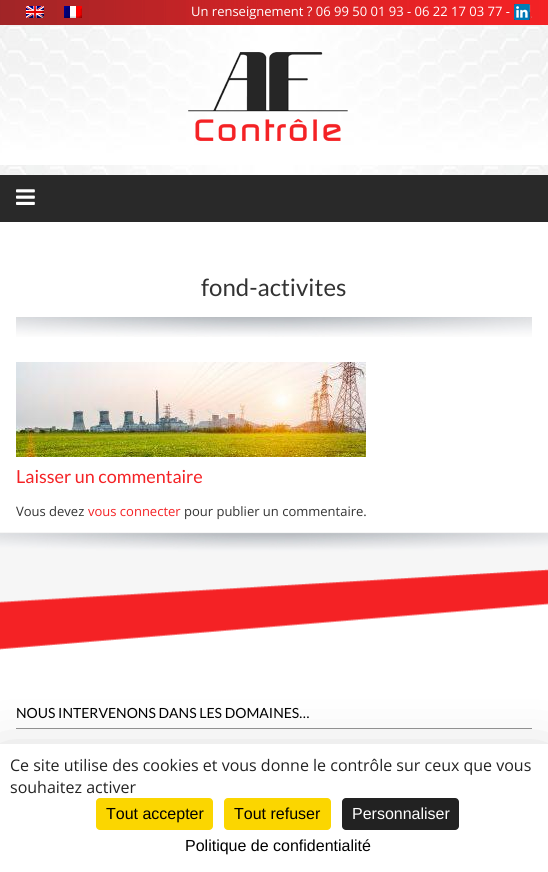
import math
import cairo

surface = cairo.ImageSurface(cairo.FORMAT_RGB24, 548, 872)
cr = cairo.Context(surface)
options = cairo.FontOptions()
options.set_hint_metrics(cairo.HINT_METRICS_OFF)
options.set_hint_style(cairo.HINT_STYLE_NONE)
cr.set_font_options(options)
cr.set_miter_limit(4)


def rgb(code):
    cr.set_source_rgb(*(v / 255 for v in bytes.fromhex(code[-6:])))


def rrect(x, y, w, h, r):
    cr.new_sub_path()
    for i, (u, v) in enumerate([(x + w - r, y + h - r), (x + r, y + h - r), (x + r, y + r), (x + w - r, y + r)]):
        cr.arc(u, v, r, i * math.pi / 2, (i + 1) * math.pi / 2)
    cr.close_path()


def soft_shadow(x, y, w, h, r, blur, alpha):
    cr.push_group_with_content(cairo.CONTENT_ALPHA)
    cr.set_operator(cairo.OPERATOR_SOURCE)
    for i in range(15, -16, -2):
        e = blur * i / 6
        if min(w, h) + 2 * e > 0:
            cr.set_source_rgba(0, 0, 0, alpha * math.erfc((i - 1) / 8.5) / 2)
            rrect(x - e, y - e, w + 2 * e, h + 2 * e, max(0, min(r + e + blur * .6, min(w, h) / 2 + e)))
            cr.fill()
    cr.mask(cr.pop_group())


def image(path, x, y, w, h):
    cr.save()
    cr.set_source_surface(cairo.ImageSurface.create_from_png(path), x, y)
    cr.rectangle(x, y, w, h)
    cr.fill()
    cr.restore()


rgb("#ffffff")
cr.paint()
image("img/1.png", 0, 0, 548, 25)
image("img/2.png", 26, 6, 18, 12)
image("img/3.png", 64, 6, 18, 12)
image("img/4.png", 514, 4, 18, 16)
image("img/5.png", 0, 25, 548, 150)
image("img/6.png", 188, 52, 160, 89)
rgb("#292929")
cr.rectangle(0, 175, 548, 47)
cr.fill()
image("img/7.png", 16, 189, 19, 16)
image("img/8.png", 16, 317, 516, 20)
image("img/9.png", 16, 362, 350, 95)
image("img/10.png", 0, 532, 548, 118)
rgb("#949494")
cr.rectangle(16, 728, 516, 1)
cr.fill()
rgb("#000000")
soft_shadow(0, 764, 548, 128, 0, 30, 0.25)
rgb("#ffffff")
cr.rectangle(0, 744, 548, 128)
cr.fill()
rgb("#fbd600")
rrect(96, 798, 117, 32, 4)
cr.fill()
rrect(224, 798, 107, 32, 4)
cr.fill()
rgb("#222222")
rrect(342, 798, 117, 32, 4)
cr.fill()
cr.select_font_face("Open Sans")
cr.set_font_size(13)
rgb("#ffffff")
cr.move_to(191, 16)
cr.show_text("Un renseignement ? 06 99 50 01 93 - 06 22 17 03 77 -")
cr.select_font_face("Lato")
cr.set_font_size(24)
rgb("#333333")
cr.move_to(201, 296)
cr.show_text("fond-activites")
cr.set_font_size(18)
rgb("#f42225")
cr.move_to(16, 483)
cr.show_text("Laisser un commentaire")
cr.select_font_face("Open Sans")
cr.set_font_size(13)
rgb("#333333")
cr.move_to(16, 516)
cr.show_text("Vous devez")
rgb("#f42225")
cr.move_to(88, 516)
cr.show_text("vous connecter")
rgb("#333333")
cr.move_to(184, 516)
cr.show_text("pour publier un commentaire.")
cr.select_font_face("Lato")
cr.set_font_size(14)
rgb("#000000")
cr.move_to(16, 718)
cr.show_text("NOUS INTERVENONS DANS LES DOMAINES…")
cr.select_font_face("Open Sans")
cr.set_font_size(16)
rgb("#222222")
cr.move_to(10, 771)
cr.show_text("Ce site utilise des cookies et vous donne le contrôle sur ceux que vous")
cr.move_to(10, 793)
cr.show_text("souhaitez activer")
cr.select_font_face("Liberation Sans")
rgb("#000000")
cr.move_to(106, 819)
cr.show_text("Tout accepter")
cr.move_to(234, 819)
cr.show_text("Tout refuser")
rgb("#ffffff")
cr.move_to(352, 819)
cr.show_text("Personnaliser")
rgb("#000000")
cr.move_to(185, 851)
cr.show_text("Politique de confidentialité")
surface.write_to_png("page.png")
